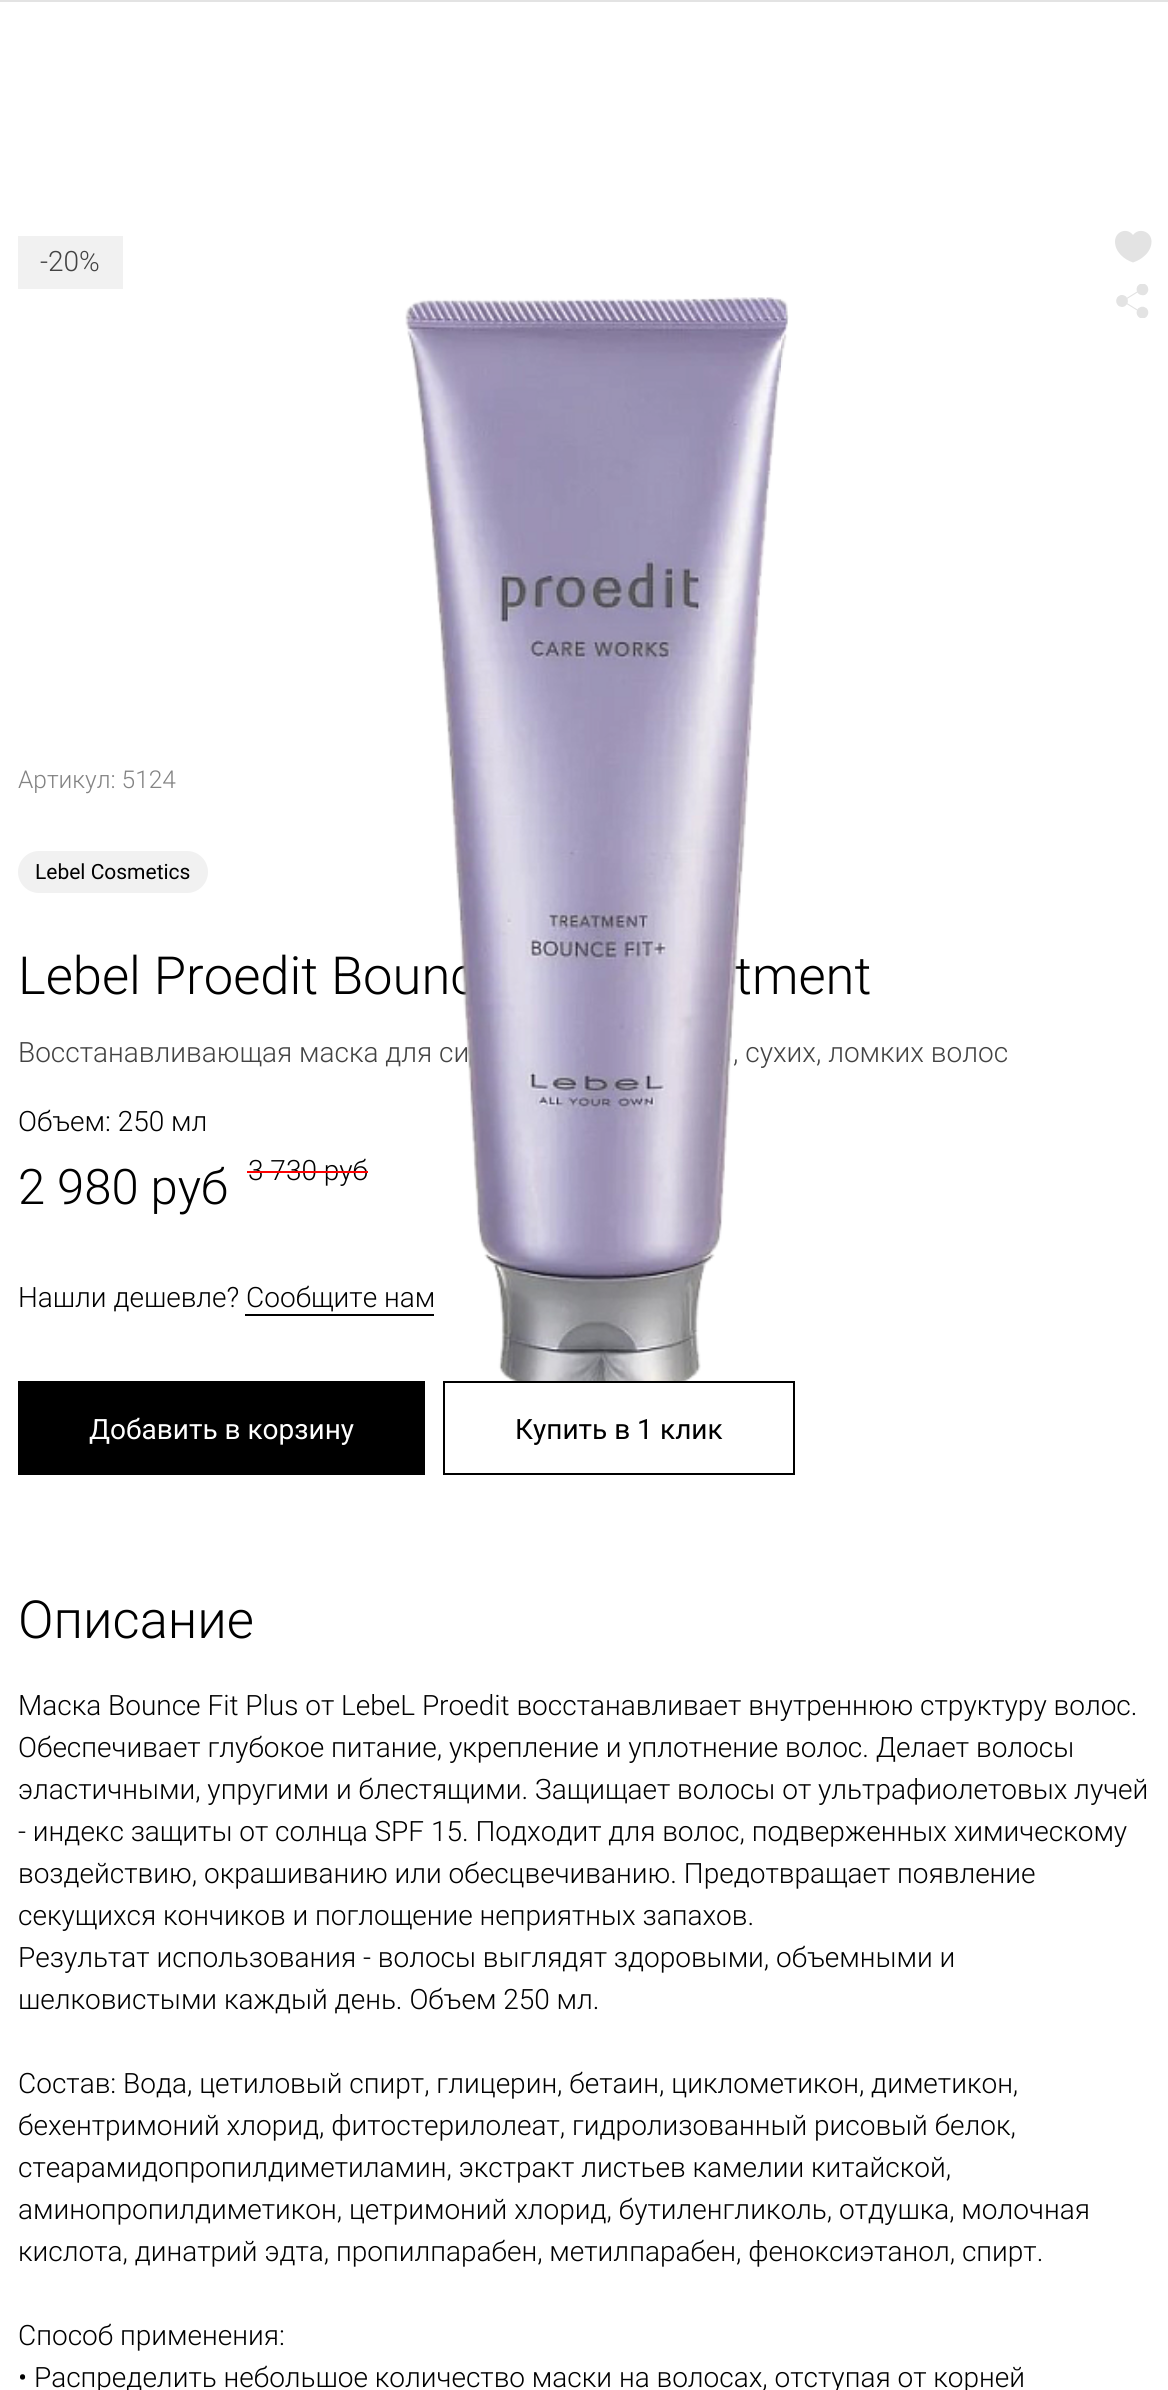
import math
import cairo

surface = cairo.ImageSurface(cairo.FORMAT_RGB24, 1168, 2390)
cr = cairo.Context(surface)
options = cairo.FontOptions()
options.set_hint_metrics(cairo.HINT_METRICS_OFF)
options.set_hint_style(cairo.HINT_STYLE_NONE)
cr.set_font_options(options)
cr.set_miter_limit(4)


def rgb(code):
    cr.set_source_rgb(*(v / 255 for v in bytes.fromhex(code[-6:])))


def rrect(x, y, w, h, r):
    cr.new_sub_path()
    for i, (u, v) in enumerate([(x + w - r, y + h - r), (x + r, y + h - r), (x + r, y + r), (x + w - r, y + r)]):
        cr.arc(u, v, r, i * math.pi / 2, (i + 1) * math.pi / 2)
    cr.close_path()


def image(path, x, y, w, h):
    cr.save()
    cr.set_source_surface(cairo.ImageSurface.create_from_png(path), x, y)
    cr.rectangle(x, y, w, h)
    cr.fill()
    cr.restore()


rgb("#ffffff")
cr.paint()
rgb("#e3e3e3")
cr.rectangle(0, 0, 1168, 2)
cr.fill()
rgb("#f1f1f1")
cr.rectangle(18, 236, 105, 53)
cr.fill()
rgb("#e3e3e3")
cr.new_path()
cr.move_to(1151.5, 241.5)
cr.curve_to(1151.5, 231.5, 1139, 227, 1133, 235)
cr.curve_to(1127, 227, 1115, 231.5, 1115, 241.5)
cr.curve_to(1115, 252, 1124, 259.5, 1133, 262.5)
cr.curve_to(1142, 259.5, 1151.5, 252, 1151.5, 241.5)
cr.close_path()
cr.fill()
image("img/2.png", 1116, 284, 33, 34)
rgb("#f1f1f1")
rrect(18, 851, 190, 42, 21)
cr.fill()
rgb("#000000")
cr.rectangle(18, 1381, 407, 94)
cr.fill()
cr.rectangle(444, 1382, 350, 92)
cr.stroke()
cr.select_font_face("Roboto Light")
cr.set_font_size(28)
rgb("#434343")
cr.move_to(40, 271)
cr.show_text("-20%")
cr.set_font_size(24.5)
rgb("#838383")
cr.move_to(18, 788)
cr.show_text("Артикул: 5124")
cr.select_font_face("Roboto")
cr.set_font_size(21)
rgb("#000000")
cr.move_to(35, 879)
cr.show_text("Lebel Cosmetics")
cr.select_font_face("Roboto Light")
cr.set_font_size(52.5)
cr.move_to(18, 994)
cr.show_text("Lebel Proedit Bounc")
cr.move_to(735, 994)
cr.show_text("tment")
cr.set_font_size(28)
rgb("#434343")
cr.move_to(18, 1062)
cr.show_text("Восстанавливающая маска для си")
cr.move_to(733, 1062)
cr.show_text(", сухих, ломких волос")
image("img/1.png", 405, 297, 384, 1084)
rgb("#000000")
cr.move_to(18, 1131)
cr.show_text("Объем: 250 мл")
cr.set_font_size(49)
cr.move_to(18, 1204)
cr.show_text("2 980 руб")
cr.set_font_size(28)
cr.move_to(248, 1180)
cr.show_text("3 730 руб")
rgb("#ff0000")
cr.rectangle(247, 1171, 121, 2)
cr.fill()
rgb("#000000")
cr.move_to(18, 1307)
cr.show_text("Нашли дешевле? Сообщите нам")
cr.rectangle(245, 1314, 189, 2)
cr.fill()
cr.select_font_face("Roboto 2")
rgb("#ffffff")
cr.move_to(89, 1439)
cr.show_text("Добавить в корзину")
rgb("#000000")
cr.move_to(515, 1439)
cr.show_text("Купить в")
cr.select_font_face("Roboto")
cr.move_to(637, 1439)
cr.show_text("1")
cr.select_font_face("Roboto 2")
cr.move_to(660, 1439)
cr.show_text("клик")
cr.select_font_face("Roboto Light")
cr.set_font_size(52.5)
cr.move_to(18, 1638)
cr.show_text("Описание")
cr.set_font_size(28)
for x, y, s in [
    (18, 1715, "Маска Bounce Fit Plus от LebeL Proedit восстанавливает внутреннюю структуру волос."),
    (18, 1757, "Обеспечивает глубокое питание, укрепление и уплотнение волос. Делает волосы"),
    (18, 1799, "эластичными, упругими и блестящими. Защищает волосы от ультрафиолетовых лучей"),
    (18, 1841, "- индекс защиты от солнца SPF 15. Подходит для волос, подверженных химическому"),
    (18, 1883, "воздействию, окрашиванию или обесцвечиванию. Предотвращает появление"),
    (18, 1925, "секущихся кончиков и поглощение неприятных запахов."),
    (18, 1967, "Результат использования - волосы выглядят здоровыми, объемными и"),
    (18, 2009, "шелковистыми каждый день. Объем 250 мл."),
    (18, 2093, "Состав: Вода, цетиловый спирт, глицерин, бетаин, циклометикон, диметикон,"),
    (18, 2135, "бехентримоний хлорид, фитостерилолеат, гидролизованный рисовый белок,"),
    (18, 2177, "стеарамидопропилдиметиламин, экстракт листьев камелии китайской,"),
    (18, 2219, "аминопропилдиметикон, цетримоний хлорид, бутиленгликоль, отдушка, молочная"),
    (18, 2261, "кислота, динатрий эдта, пропилпарабен, метилпарабен, феноксиэтанол, спирт."),
    (18, 2345, "Способ применения:"),
    (18, 2387, "• Распределить небольшое количество маски на волосах, отступая от корней"),
]:
    cr.move_to(x, y)
    cr.show_text(s)
surface.write_to_png("page.png")
